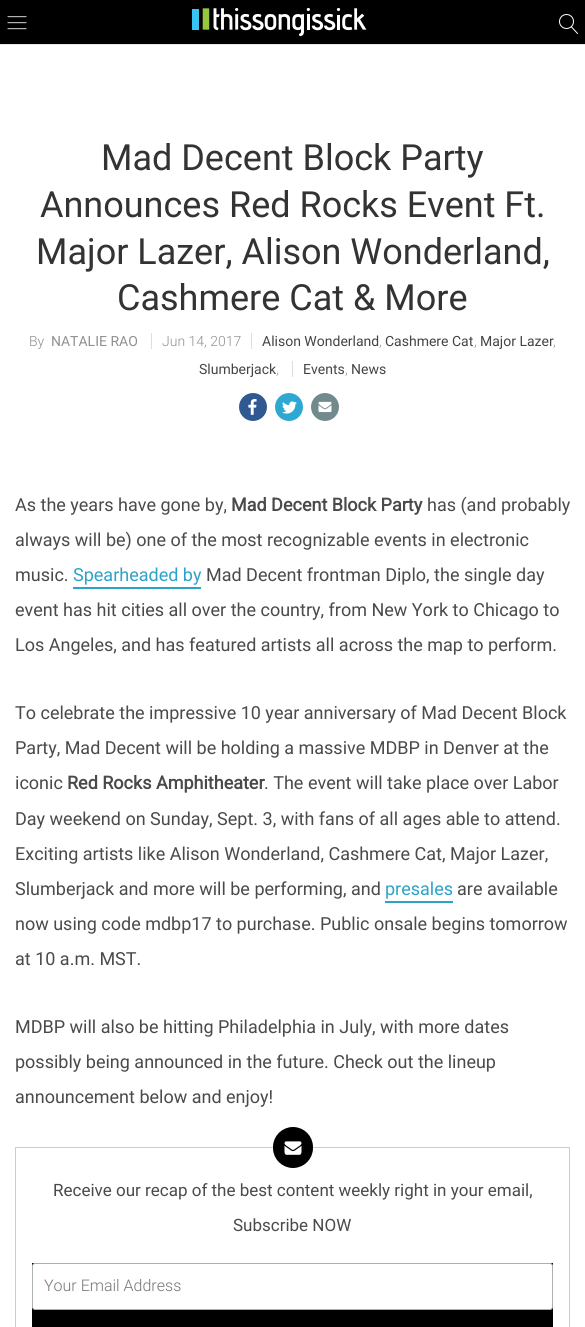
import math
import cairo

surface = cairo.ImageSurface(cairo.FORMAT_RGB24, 585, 1327)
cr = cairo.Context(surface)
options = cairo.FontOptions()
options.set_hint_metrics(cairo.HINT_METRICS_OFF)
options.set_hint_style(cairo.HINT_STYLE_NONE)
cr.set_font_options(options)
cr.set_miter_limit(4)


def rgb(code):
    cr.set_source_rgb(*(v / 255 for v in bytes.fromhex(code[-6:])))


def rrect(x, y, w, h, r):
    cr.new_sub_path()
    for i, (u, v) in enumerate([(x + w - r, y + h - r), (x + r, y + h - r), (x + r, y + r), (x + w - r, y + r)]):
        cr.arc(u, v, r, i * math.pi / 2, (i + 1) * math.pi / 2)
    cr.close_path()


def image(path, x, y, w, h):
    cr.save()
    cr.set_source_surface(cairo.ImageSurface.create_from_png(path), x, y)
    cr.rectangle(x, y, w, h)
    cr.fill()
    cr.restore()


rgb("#ffffff")
cr.paint()
rgb("#000000")
cr.rectangle(0, 0, 585, 44)
cr.fill()
rgb("#e7e7e7")
cr.rectangle(0, 44, 585, 1)
cr.fill()
image("img/1.png", 7, 16, 20, 14)
image("img/2.png", 192, 7, 175, 30)
image("img/3.png", 559, 14, 19, 20)
for x, y, w, h, color in [
    (151, 333, 1, 16, "#dedede"),
    (251, 333, 1, 16, "#dedede"),
    (292, 361, 1, 16, "#dedede"),
]:
    rgb(color)
    cr.rectangle(x, y, w, h)
    cr.fill()
rgb("#305891")
cr.arc(253, 407, 14, 0, 2 * math.pi)
cr.fill()
image("img/4.png", 248, 399, 9, 16)
rgb("#2ca8d2")
cr.arc(289, 407, 14, 0, 2 * math.pi)
cr.fill()
image("img/5.png", 282, 401, 15, 13)
rgb("#738a8d")
cr.arc(325, 407, 14, 0, 2 * math.pi)
cr.fill()
image("img/6.png", 318, 401, 14, 12)
rgb("#2da2c8")
cr.rectangle(73, 587, 128, 2)
cr.fill()
cr.rectangle(385, 901, 68, 2)
cr.fill()
cr.rectangle(15.5, 1147.5, 554, 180)
rgb("#cccccc")
cr.set_line_width(1)
cr.stroke()
rgb("#000000")
rrect(278, 1132, 30, 31, 15)
cr.fill_preserve()
cr.set_line_width(10)
cr.stroke()
image("img/7.png", 284, 1141, 18, 14)
cr.rectangle(32, 1263, 521, 64)
cr.fill()
rgb("#ffffff")
rrect(32.5, 1263.5, 520, 46, 2.5)
cr.fill_preserve()
rgb("#abb0b2")
cr.set_line_width(1)
cr.stroke()
cr.select_font_face("Roboto")
cr.set_font_size(36)
rgb("#333333")
for x, y, s in [
    (101, 170, "Mad Decent Block Party"),
    (40, 217, "Announces Red Rocks Event Ft."),
    (36, 264, "Major Lazer, Alison Wonderland,"),
    (117, 310, "Cashmere Cat & More"),
]:
    cr.move_to(x, y)
    cr.show_text(s)
cr.select_font_face("Roboto Light")
cr.set_font_size(14)
rgb("#909090")
cr.move_to(29, 346)
cr.show_text("By")
cr.select_font_face("Roboto")
cr.move_to(51, 346)
cr.show_text("NATALIE RAO")
cr.select_font_face("Roboto Light")
cr.move_to(162, 346)
cr.show_text("Jun 14, 2017")
cr.select_font_face("Roboto")
rgb("#444444")
cr.move_to(262, 346)
cr.show_text("Alison Wonderland")
cr.select_font_face("Roboto Light")
rgb("#909090")
cr.move_to(379, 346)
cr.show_text(",")
cr.select_font_face("Roboto")
rgb("#444444")
cr.move_to(385, 346)
cr.show_text("Cashmere Cat")
cr.select_font_face("Roboto Light")
rgb("#909090")
cr.move_to(474, 346)
cr.show_text(",")
cr.select_font_face("Roboto")
rgb("#444444")
cr.move_to(480, 346)
cr.show_text("Major Lazer")
cr.select_font_face("Roboto Light")
rgb("#909090")
cr.move_to(553, 346)
cr.show_text(",")
cr.select_font_face("Roboto")
rgb("#444444")
cr.move_to(199, 374)
cr.show_text("Slumberjack")
cr.select_font_face("Roboto Light")
rgb("#909090")
cr.move_to(276, 374)
cr.show_text(",")
cr.select_font_face("Roboto")
rgb("#444444")
cr.move_to(303, 374)
cr.show_text("Events")
cr.select_font_face("Roboto Light")
rgb("#909090")
cr.move_to(345, 374)
cr.show_text(",")
cr.select_font_face("Roboto")
rgb("#444444")
cr.move_to(351, 374)
cr.show_text("News")
cr.set_font_size(18)
rgb("#4a4a4a")
cr.move_to(15, 511)
cr.show_text("As the years have gone by,")
cr.select_font_face("Roboto", cairo.FONT_SLANT_NORMAL, cairo.FONT_WEIGHT_BOLD)
cr.move_to(231, 511)
cr.show_text("Mad Decent Block Party")
cr.select_font_face("Roboto")
for x, y, s in [
    (427, 511, "has (and probably"),
    (15, 546, "always will be) one of the most recognizable events in electronic"),
    (15, 581, "music."),
]:
    cr.move_to(x, y)
    cr.show_text(s)
rgb("#2da2c8")
cr.move_to(73, 581)
cr.show_text("Spearheaded by")
rgb("#4a4a4a")
for x, y, s in [
    (206, 581, "Mad Decent frontman Diplo, the single day"),
    (15, 616, "event has hit cities all over the country, from New York to Chicago to"),
    (15, 651, "Los Angeles, and has featured artists all across the map to perform."),
    (15, 719, "To celebrate the impressive 10 year anniversary of Mad Decent Block"),
    (15, 754, "Party, Mad Decent will be holding a massive MDBP in Denver at the"),
    (15, 789, "iconic"),
]:
    cr.move_to(x, y)
    cr.show_text(s)
cr.select_font_face("Roboto", cairo.FONT_SLANT_NORMAL, cairo.FONT_WEIGHT_BOLD)
cr.move_to(67, 789)
cr.show_text("Red Rocks Amphitheater")
cr.select_font_face("Roboto")
for x, y, s in [
    (264, 789, ". The event will take place over Labor"),
    (15, 825, "Day weekend on Sunday, Sept. 3, with fans of all ages able to attend."),
    (15, 860, "Exciting artists like Alison Wonderland, Cashmere Cat, Major Lazer,"),
    (15, 895, "Slumberjack and more will be performing, and"),
]:
    cr.move_to(x, y)
    cr.show_text(s)
rgb("#2da2c8")
cr.move_to(385, 895)
cr.show_text("presales")
rgb("#4a4a4a")
for x, y, s in [
    (457, 895, "are available"),
    (15, 930, "now using code mdbp17 to purchase. Public onsale begins tomorrow"),
    (15, 965, "at 10 a.m. MST."),
    (15, 1033, "MDBP will also be hitting Philadelphia in July, with more dates"),
    (15, 1068, "possibly being announced in the future. Check out the lineup"),
    (15, 1103, "announcement below and enjoy!"),
]:
    cr.move_to(x, y)
    cr.show_text(s)
cr.set_font_size(17)
cr.move_to(53, 1196)
cr.show_text("Receive our recap of the best content weekly right in your email,")
cr.move_to(233, 1231)
cr.show_text("Subscribe NOW")
cr.select_font_face("Roboto Light")
cr.set_font_size(16)
rgb("#757575")
cr.move_to(44, 1291)
cr.show_text("Your Email Address")
surface.write_to_png("page.png")
